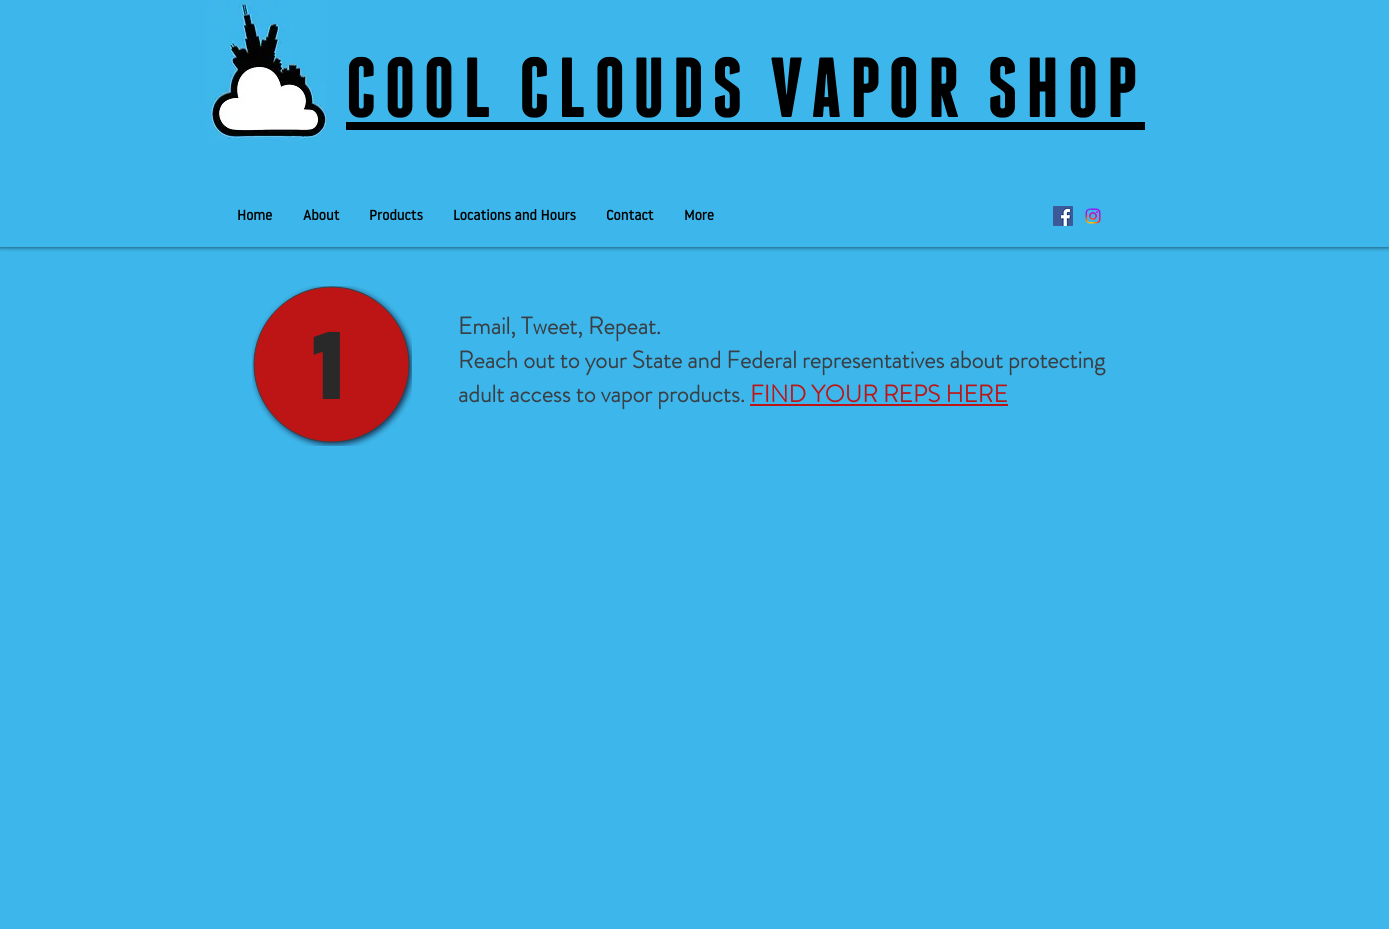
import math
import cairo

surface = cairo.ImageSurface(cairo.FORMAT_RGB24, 1389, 929)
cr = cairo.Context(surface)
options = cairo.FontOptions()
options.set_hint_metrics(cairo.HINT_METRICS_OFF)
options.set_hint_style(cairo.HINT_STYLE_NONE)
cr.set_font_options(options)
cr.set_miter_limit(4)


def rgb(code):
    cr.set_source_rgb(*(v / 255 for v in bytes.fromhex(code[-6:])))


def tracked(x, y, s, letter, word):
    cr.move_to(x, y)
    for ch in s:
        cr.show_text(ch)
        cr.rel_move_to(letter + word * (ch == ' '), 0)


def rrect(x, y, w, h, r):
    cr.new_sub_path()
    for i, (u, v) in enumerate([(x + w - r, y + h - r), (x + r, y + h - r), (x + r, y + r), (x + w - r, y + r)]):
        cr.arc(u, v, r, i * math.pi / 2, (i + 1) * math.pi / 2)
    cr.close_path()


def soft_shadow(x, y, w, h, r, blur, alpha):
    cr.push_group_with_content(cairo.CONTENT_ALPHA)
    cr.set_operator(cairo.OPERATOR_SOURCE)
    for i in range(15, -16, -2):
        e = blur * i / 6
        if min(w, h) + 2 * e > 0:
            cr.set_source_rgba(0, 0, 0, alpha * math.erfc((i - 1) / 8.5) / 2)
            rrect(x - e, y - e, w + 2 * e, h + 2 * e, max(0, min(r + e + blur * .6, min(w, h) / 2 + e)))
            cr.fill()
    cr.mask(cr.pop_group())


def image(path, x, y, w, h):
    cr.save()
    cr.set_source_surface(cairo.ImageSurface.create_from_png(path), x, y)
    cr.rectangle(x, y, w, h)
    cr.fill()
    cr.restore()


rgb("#3db7eb")
cr.paint()
cr.save()
cr.rectangle(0, 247, 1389, 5)
cr.clip()
rgb("#000000")
soft_shadow(0, 0, 1389, 247, 0, 2.5, 0.7)
cr.restore()
image("img/1.png", 206, 0, 121, 141)
rgb("#000000")
cr.rectangle(346, 122, 799, 8)
cr.fill()
image("img/2.png", 1053, 206, 20, 20)
image("img/3.png", 1085, 208, 16, 16)
image("img/4.png", 252, 286, 160, 160)
rgb("#bd1515")
cr.rectangle(750, 404, 258, 2)
cr.fill()
cr.select_font_face("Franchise", cairo.FONT_SLANT_NORMAL, cairo.FONT_WEIGHT_BOLD)
cr.set_font_size(85)
rgb("#000000")
tracked(346, 117, "COOL CLOUDS VAPOR SHOP", 8.5, 0)
cr.select_font_face("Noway", cairo.FONT_SLANT_NORMAL, cairo.FONT_WEIGHT_BOLD)
cr.set_font_size(14)
for x, y, s in [
    (237, 220, "Home"),
    (303, 220, "About"),
    (369, 220, "Products"),
    (453, 220, "Locations and Hours"),
    (606, 220, "Contact"),
    (684, 220, "More"),
]:
    cr.move_to(x, y)
    cr.show_text(s)
cr.select_font_face("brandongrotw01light", cairo.FONT_SLANT_NORMAL, cairo.FONT_WEIGHT_BOLD)
cr.set_font_size(24)
rgb("#393f44")
for x, y, s in [
    (458, 334, "Email, Tweet, Repeat."),
    (458, 368, "Reach out to your State and Federal representatives about protecting"),
    (458, 402, "adult access to vapor products."),
]:
    cr.move_to(x, y)
    cr.show_text(s)
rgb("#bd1515")
cr.move_to(750, 402)
cr.show_text("FIND YOUR REPS HERE")
cr.select_font_face("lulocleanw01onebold", cairo.FONT_SLANT_NORMAL, cairo.FONT_WEIGHT_BOLD)
cr.set_font_size(86)
rgb("#292929")
cr.move_to(311, 399)
cr.show_text("1")
surface.write_to_png("page.png")
